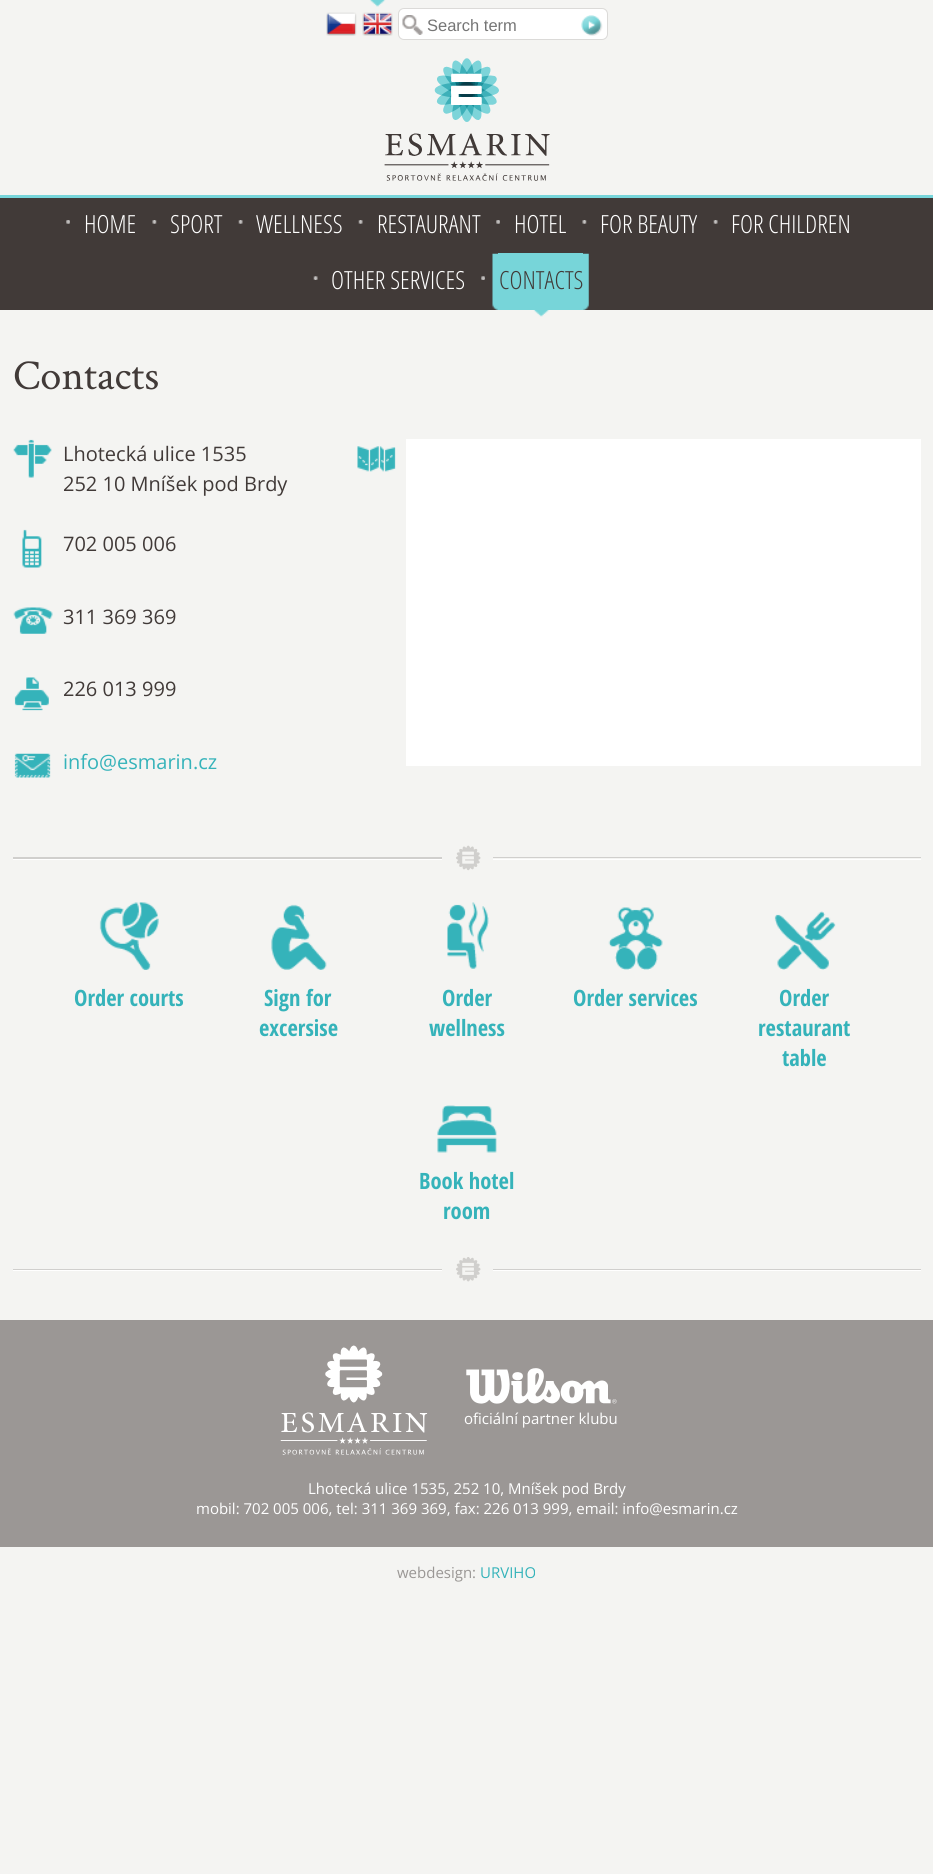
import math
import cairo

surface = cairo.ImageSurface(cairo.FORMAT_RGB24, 933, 1874)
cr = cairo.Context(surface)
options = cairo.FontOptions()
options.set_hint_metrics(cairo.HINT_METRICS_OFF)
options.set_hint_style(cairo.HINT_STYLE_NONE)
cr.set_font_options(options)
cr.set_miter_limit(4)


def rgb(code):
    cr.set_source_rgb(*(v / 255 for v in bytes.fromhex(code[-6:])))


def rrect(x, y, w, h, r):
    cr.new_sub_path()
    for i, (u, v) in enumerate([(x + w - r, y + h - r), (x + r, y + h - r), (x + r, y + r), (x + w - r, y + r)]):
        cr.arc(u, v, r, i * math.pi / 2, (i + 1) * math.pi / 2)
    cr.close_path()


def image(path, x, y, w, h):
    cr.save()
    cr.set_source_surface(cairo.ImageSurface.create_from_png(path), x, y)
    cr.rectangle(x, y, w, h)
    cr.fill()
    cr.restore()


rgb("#f4f4f2")
cr.paint()
image("img/1.png", 326, 12, 31, 24)
image("img/2.png", 362, 0, 31, 36)
rgb("#ffffff")
rrect(398.5, 8.5, 209, 31, 5.5)
cr.fill_preserve()
rgb("#dbdad8")
cr.set_line_width(1)
cr.stroke()
image("img/3.png", 402, 15, 21, 20)
image("img/4.png", 581, 15, 22, 21)
image("img/5.png", 384, 58, 166, 123)
rgb("#413a38")
cr.rectangle(0, 198, 933, 112)
cr.fill()
rgb("#77d5da")
cr.rectangle(0, 195, 933, 3)
cr.fill()
image("img/6.png", 66, 220, 4, 4)
image("img/7.png", 152, 220, 5, 4)
image("img/8.png", 238, 220, 5, 4)
image("img/8.png", 358, 220, 5, 4)
image("img/6.png", 496, 220, 4, 4)
image("img/7.png", 582, 220, 5, 4)
image("img/8.png", 713, 220, 5, 4)
image("img/9.png", 313, 276, 5, 4)
image("img/10.png", 481, 276, 4, 4)
image("img/11.png", 492, 253, 6, 57)
rgb("#77d5d9")
cr.rectangle(498, 253, 85, 57)
cr.fill()
image("img/12.png", 533, 310, 16, 7)
image("img/13.png", 583, 253, 6, 57)
image("img/14.png", 13, 439, 39, 39)
image("img/15.png", 357, 446, 39, 26)
rgb("#ffffff")
cr.rectangle(406, 439, 515, 327)
cr.fill()
image("img/16.png", 22, 529, 20, 39)
image("img/17.png", 13, 607, 40, 27)
image("img/18.png", 14, 677, 35, 34)
image("img/19.png", 14, 753, 37, 25)
image("img/20.png", 13, 845, 908, 26)
image("img/21.png", 99, 902, 60, 68)
image("img/22.png", 271, 904, 56, 66)
image("img/23.png", 447, 902, 42, 67)
image("img/24.png", 608, 907, 55, 63)
image("img/25.png", 774, 911, 62, 59)
image("img/26.png", 437, 1105, 60, 48)
image("img/27.png", 13, 1257, 908, 25)
rgb("#9b9795")
cr.rectangle(0, 1320, 933, 227)
cr.fill()
image("img/28.png", 280, 1345, 148, 110)
image("img/29.png", 466, 1368, 151, 36)
cr.select_font_face("Liberation Sans")
cr.set_font_size(16.5)
rgb("#757575")
cr.move_to(427, 31)
cr.show_text("Search term")
cr.select_font_face("Open Sans Condensed Light")
cr.set_font_size(25)
rgb("#ffffff")
for x, y, s in [
    (84, 233, "HOME"),
    (170, 233, "SPORT"),
    (256, 233, "WELLNESS"),
    (377, 233, "RESTAURANT"),
    (514, 233, "HOTEL"),
    (600, 233, "FOR BEAUTY"),
    (731, 233, "FOR CHILDREN"),
    (331, 289, "OTHER SERVICES"),
]:
    cr.move_to(x, y)
    cr.show_text(s)
rgb("#413a38")
cr.move_to(499, 289)
cr.show_text("CONTACTS")
cr.select_font_face("Crimson Text")
cr.set_font_size(42.5)
cr.move_to(13, 389)
cr.show_text("Contacts")
cr.select_font_face("Open Sans")
cr.set_font_size(20)
for x, y, s in [
    (63, 461, "Lhotecká ulice 1535"),
    (63, 491, "252 10 Mníšek pod Brdy"),
    (63, 551, "702 005 006"),
    (63, 624, "311 369 369"),
    (63, 696, "226 013 999"),
]:
    cr.move_to(x, y)
    cr.show_text(s)
rgb("#35b3ba")
cr.move_to(63, 769)
cr.show_text("info@esmarin.cz")
cr.select_font_face("Open Sans Condensed", cairo.FONT_SLANT_NORMAL, cairo.FONT_WEIGHT_BOLD)
cr.set_font_size(22.5)
for x, y, s in [
    (74, 1006, "Order courts"),
    (264, 1006, "Sign for"),
    (259, 1036, "excersise"),
    (442, 1006, "Order"),
    (429, 1036, "wellness"),
    (573, 1006, "Order services"),
    (779, 1006, "Order"),
    (758, 1036, "restaurant"),
    (782, 1066, "table"),
    (419, 1189, "Book hotel"),
    (443, 1219, "room"),
]:
    cr.move_to(x, y)
    cr.show_text(s)
cr.select_font_face("Open Sans")
cr.set_font_size(15)
rgb("#ffffff")
for x, y, s in [
    (464, 1424, "oficiální partner klubu"),
    (308, 1494, "Lhotecká ulice 1535, 252 10, Mníšek pod Brdy"),
    (196, 1514, "mobil: 702 005 006, tel: 311 369 369, fax: 226 013 999, email: info@esmarin.cz"),
]:
    cr.move_to(x, y)
    cr.show_text(s)
rgb("#9a9795")
cr.move_to(397, 1578)
cr.show_text("webdesign:")
rgb("#35b3ba")
cr.move_to(480, 1578)
cr.show_text("URVIHO")
surface.write_to_png("page.png")
